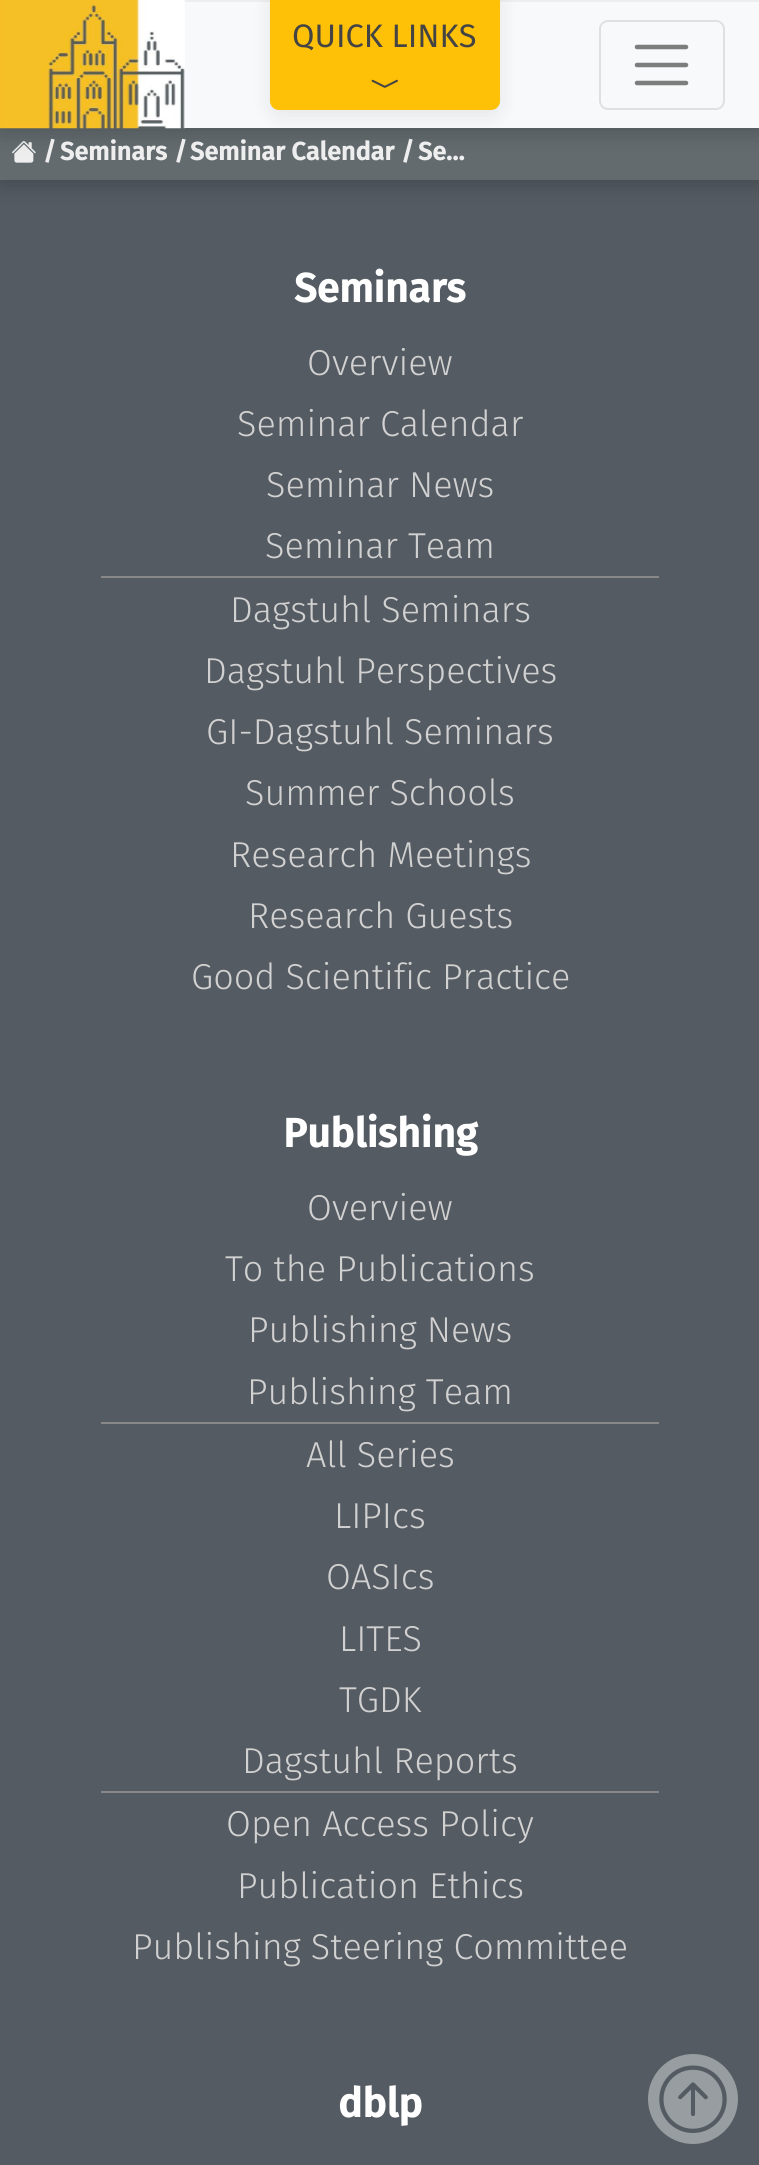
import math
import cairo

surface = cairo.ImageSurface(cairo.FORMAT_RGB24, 759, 2165)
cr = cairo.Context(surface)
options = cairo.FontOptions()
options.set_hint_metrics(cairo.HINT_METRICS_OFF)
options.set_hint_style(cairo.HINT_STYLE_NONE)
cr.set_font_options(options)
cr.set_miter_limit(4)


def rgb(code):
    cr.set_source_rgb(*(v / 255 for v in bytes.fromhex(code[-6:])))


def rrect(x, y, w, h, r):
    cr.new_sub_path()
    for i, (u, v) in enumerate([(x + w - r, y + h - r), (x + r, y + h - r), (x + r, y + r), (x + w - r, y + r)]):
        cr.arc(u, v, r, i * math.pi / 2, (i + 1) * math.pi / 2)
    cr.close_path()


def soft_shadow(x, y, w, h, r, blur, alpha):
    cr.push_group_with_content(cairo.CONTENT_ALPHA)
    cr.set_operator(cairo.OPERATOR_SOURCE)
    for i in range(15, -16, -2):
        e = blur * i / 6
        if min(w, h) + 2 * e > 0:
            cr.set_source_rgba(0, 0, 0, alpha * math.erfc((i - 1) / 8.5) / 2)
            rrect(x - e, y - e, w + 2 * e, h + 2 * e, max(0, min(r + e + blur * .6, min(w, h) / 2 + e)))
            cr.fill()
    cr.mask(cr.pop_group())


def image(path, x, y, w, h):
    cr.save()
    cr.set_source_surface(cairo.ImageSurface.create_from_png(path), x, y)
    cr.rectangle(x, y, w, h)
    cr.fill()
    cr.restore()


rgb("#545b62")
cr.paint()
rgb("#000000")
soft_shadow(0, 133, 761, 52, 0, 11, 0.2)
rgb("#636b6f")
cr.rectangle(0, 128, 759, 52)
cr.fill()
image("img/3.png", 12, 141, 24, 22)
rgb("#000000")
soft_shadow(0, 5, 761, 128, 0, 11, 0.2)
rgb("#f8f9fa")
cr.rectangle(183, 2, 576, 126)
cr.fill()
rgb("#eeeeee")
cr.rectangle(183, 0, 576, 2)
cr.fill()
image("img/1.png", 0, 0, 185, 129)
rrect(600, 21, 124, 88, 8)
rgb("#dfe0e1")
cr.stroke()
cr.new_path()
cr.move_to(637, 47)
cr.line_to(686, 47)
cr.move_to(637, 65)
cr.line_to(686, 65)
cr.move_to(637, 83)
cr.line_to(686, 83)
rgb("#7c7d7d")
cr.set_line_width(4.5)
cr.set_line_cap(cairo.LINE_CAP_ROUND)
cr.stroke()
rgb("#000000")
soft_shadow(270, -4, 230, 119, 9, 11, 0.08)
rgb("#ffc107")
cr.new_path()
cr.move_to(270, -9)
cr.line_to(500, -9)
cr.line_to(500, 101)
cr.curve_to(500, 106, 496, 110, 491, 110)
cr.line_to(279, 110)
cr.curve_to(274, 110, 270, 106, 270, 101)
cr.close_path()
cr.fill()
image("img/2.png", 371, 79, 27, 9)
for x, y, w, h, color in [
    (101, 576, 558, 2, "#888888"),
    (101, 1422, 558, 2, "#888888"),
    (101, 1791, 558, 2, "#888888"),
]:
    rgb(color)
    cr.rectangle(x, y, w, h)
    cr.fill()
rgb("#989da1")
cr.arc(693, 2099, 45, 0, 2 * math.pi)
cr.fill()
image("img/4.png", 659, 2065, 68, 68)
cr.select_font_face("Fira Sans")
cr.set_font_size(32.5)
rgb("#444444")
cr.move_to(292, 47)
cr.show_text("QUICK LINKS")
cr.select_font_face("Fira Sans", cairo.FONT_SLANT_NORMAL, cairo.FONT_WEIGHT_BOLD)
cr.set_font_size(25.25)
rgb("#eeeeee")
for x, y, s in [
    (43, 160, "/"),
    (60, 160, "Seminars"),
    (174, 160, "/"),
    (190, 160, "Seminar Calendar"),
    (401, 160, "/"),
    (418, 160, "Se…"),
]:
    cr.move_to(x, y)
    cr.show_text(s)
cr.set_font_size(40.5)
rgb("#ffffff")
cr.move_to(294, 302)
cr.show_text("Seminars")
cr.select_font_face("Fira Sans Light")
cr.set_font_size(36)
rgb("#d2d1d1")
for x, y, s in [
    (307, 375, "Overview"),
    (237, 436, "Seminar Calendar"),
    (266, 497, "Seminar News"),
    (265, 558, "Seminar Team"),
    (230, 622, "Dagstuhl Seminars"),
    (204, 683, "Dagstuhl Perspectives"),
    (206, 744, "GI-Dagstuhl Seminars"),
    (245, 805, "Summer Schools"),
    (230, 867, "Research Meetings"),
    (248, 928, "Research Guests"),
    (191, 989, "Good Scientific Practice"),
]:
    cr.move_to(x, y)
    cr.show_text(s)
cr.select_font_face("Fira Sans", cairo.FONT_SLANT_NORMAL, cairo.FONT_WEIGHT_BOLD)
cr.set_font_size(40.5)
rgb("#ffffff")
cr.move_to(283, 1147)
cr.show_text("Publishing")
cr.select_font_face("Fira Sans Light")
cr.set_font_size(36)
rgb("#d2d1d1")
for x, y, s in [
    (307, 1220, "Overview"),
    (225, 1281, "To the Publications"),
    (248, 1342, "Publishing News"),
    (247, 1404, "Publishing Team"),
    (306, 1467, "All Series"),
    (334, 1528, "LIPIcs"),
    (326, 1589, "OASIcs"),
    (339, 1651, "LITES"),
    (339, 1712, "TGDK"),
    (242, 1773, "Dagstuhl Reports"),
    (226, 1836, "Open Access Policy"),
    (237, 1898, "Publication Ethics"),
    (132, 1959, "Publishing Steering Committee"),
]:
    cr.move_to(x, y)
    cr.show_text(s)
cr.select_font_face("Fira Sans", cairo.FONT_SLANT_NORMAL, cairo.FONT_WEIGHT_BOLD)
cr.set_font_size(40.5)
rgb("#ffffff")
cr.move_to(338, 2117)
cr.show_text("dblp")
surface.write_to_png("page.png")
